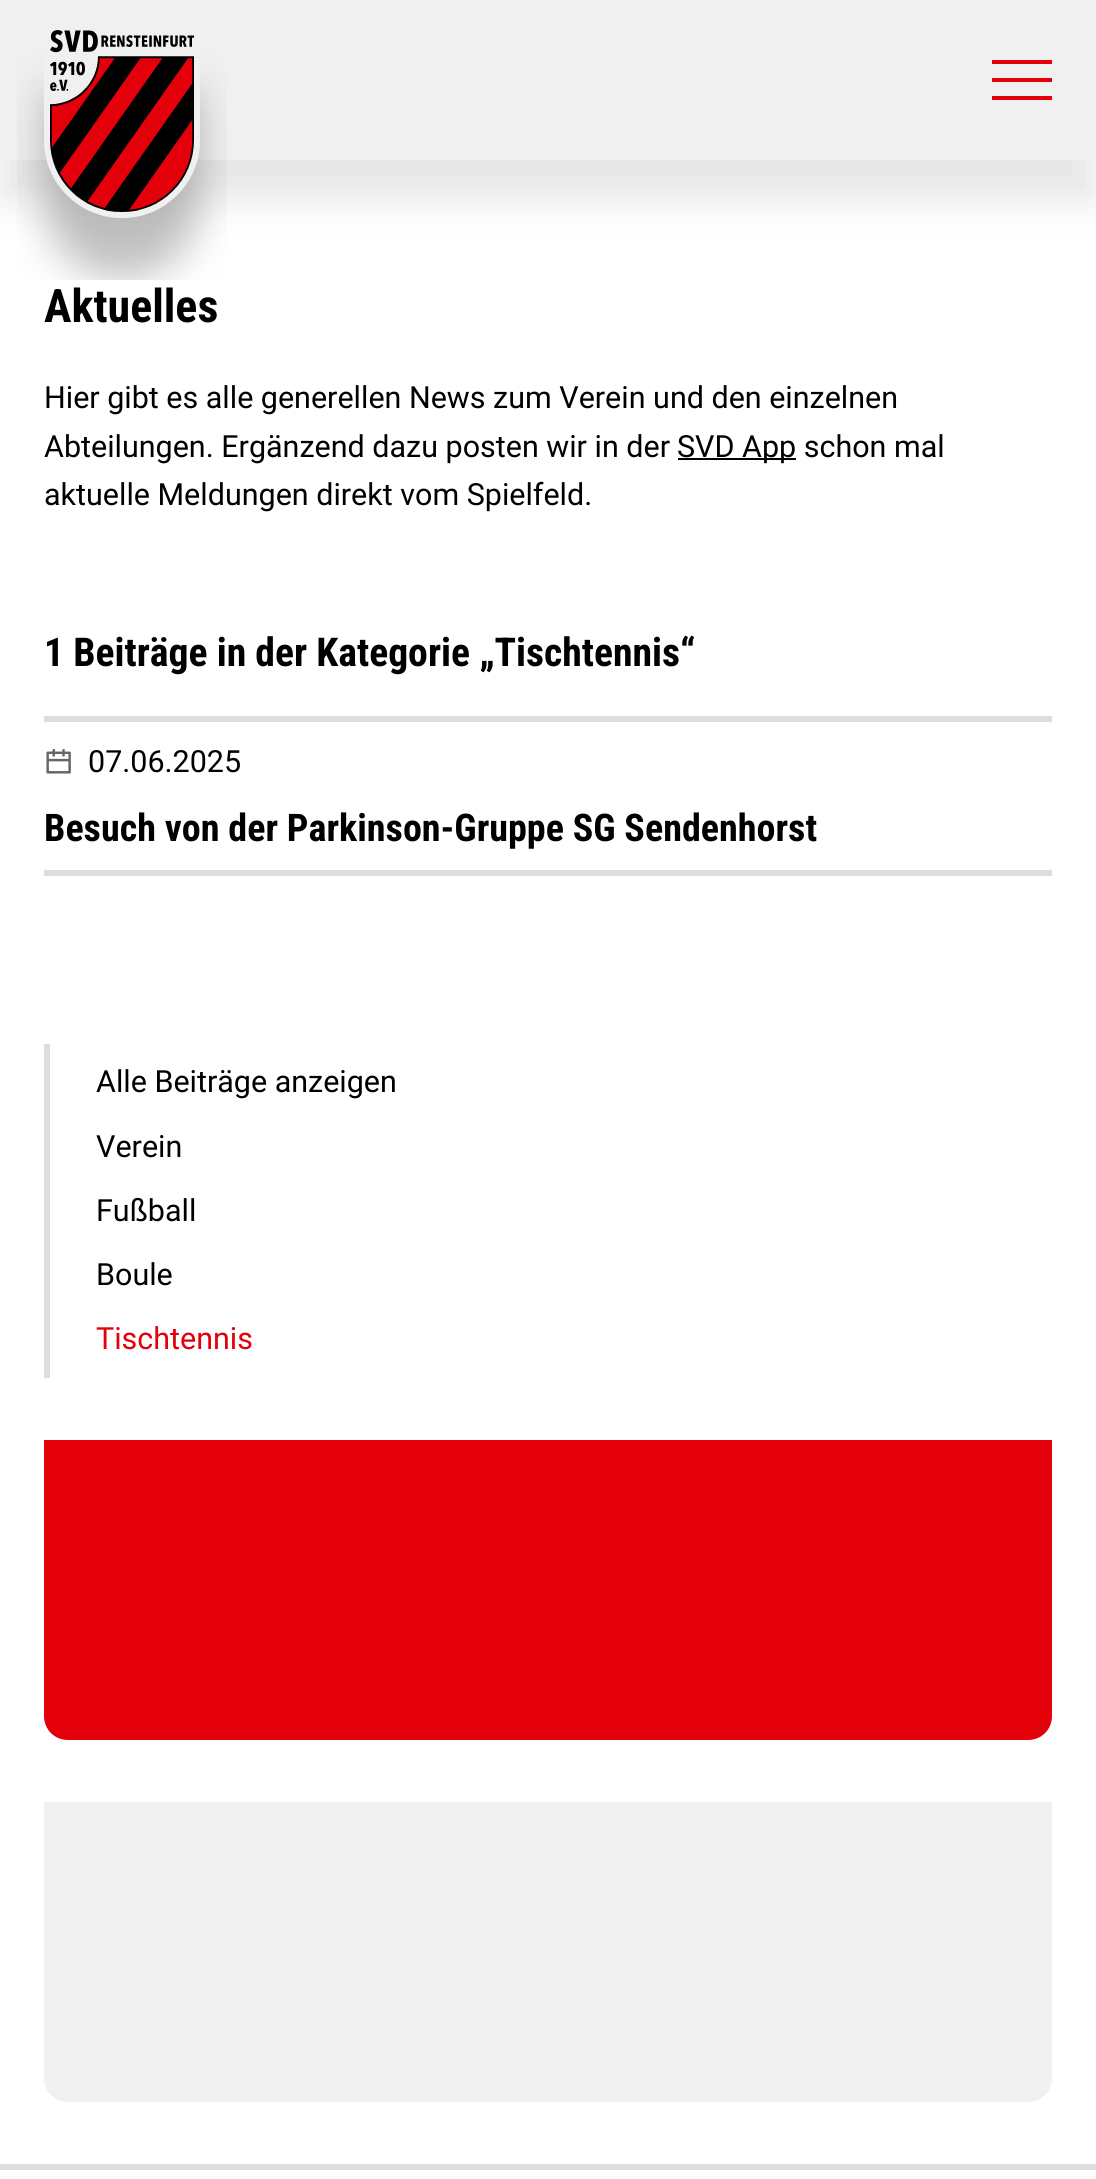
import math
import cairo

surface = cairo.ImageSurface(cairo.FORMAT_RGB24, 1096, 2179)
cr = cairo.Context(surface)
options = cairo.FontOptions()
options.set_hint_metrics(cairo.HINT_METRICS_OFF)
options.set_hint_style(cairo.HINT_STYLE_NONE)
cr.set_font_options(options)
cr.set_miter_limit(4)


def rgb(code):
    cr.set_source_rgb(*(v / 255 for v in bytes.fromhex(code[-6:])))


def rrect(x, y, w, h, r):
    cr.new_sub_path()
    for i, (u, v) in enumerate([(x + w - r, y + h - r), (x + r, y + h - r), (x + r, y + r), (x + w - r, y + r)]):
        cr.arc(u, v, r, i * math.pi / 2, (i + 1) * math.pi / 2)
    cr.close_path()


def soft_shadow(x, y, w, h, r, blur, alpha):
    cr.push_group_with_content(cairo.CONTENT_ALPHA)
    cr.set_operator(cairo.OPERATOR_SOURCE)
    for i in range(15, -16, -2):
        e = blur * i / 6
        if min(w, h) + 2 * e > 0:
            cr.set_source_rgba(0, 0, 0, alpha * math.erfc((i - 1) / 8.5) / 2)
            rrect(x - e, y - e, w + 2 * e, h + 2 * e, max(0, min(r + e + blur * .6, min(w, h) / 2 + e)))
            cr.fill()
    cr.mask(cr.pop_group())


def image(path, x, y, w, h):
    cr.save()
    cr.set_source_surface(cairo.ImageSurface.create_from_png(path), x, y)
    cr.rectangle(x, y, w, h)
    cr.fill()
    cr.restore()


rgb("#ffffff")
cr.paint()
rgb("#000000")
soft_shadow(0, 40, 1096, 160, 0, 20, 0.1)
rgb("#f0f0f0")
cr.rectangle(0, 0, 1096, 160)
cr.fill()
image("img/1.png", 17, 30, 210, 250)
for x, y, w, h, color in [
    (992, 60, 60, 4, "#e3000a"),
    (992, 78, 60, 4, "#e3000a"),
    (992, 96, 60, 4, "#e3000a"),
    (678, 458, 118, 2, "#000000"),
    (44, 716, 1008, 6, "#dddddd"),
    (44, 870, 1008, 6, "#dddddd"),
]:
    rgb(color)
    cr.rectangle(x, y, w, h)
    cr.fill()
image("img/2.png", 46, 749, 25, 25)
cr.rectangle(44, 1044, 6, 334)
cr.fill()
rgb("#e3000a")
cr.new_path()
cr.move_to(44, 1440)
cr.line_to(1052, 1440)
cr.line_to(1052, 1716)
cr.curve_to(1052, 1729.5, 1041.5, 1740, 1028, 1740)
cr.line_to(68, 1740)
cr.curve_to(54.5, 1740, 44, 1729.5, 44, 1716)
cr.close_path()
cr.fill()
rgb("#f0f0f0")
cr.new_path()
cr.move_to(44, 1802)
cr.line_to(1052, 1802)
cr.line_to(1052, 2078)
cr.curve_to(1052, 2091.5, 1041.5, 2102, 1028, 2102)
cr.line_to(68, 2102)
cr.curve_to(54.5, 2102, 44, 2091.5, 44, 2078)
cr.close_path()
cr.fill()
rgb("#dddddd")
cr.rectangle(0, 2164, 1096, 6)
cr.fill()
cr.select_font_face("Roboto Condensed", cairo.FONT_SLANT_NORMAL, cairo.FONT_WEIGHT_BOLD)
cr.set_font_size(46)
rgb("#000000")
cr.move_to(44, 322)
cr.show_text("Aktuelles")
cr.select_font_face("Roboto")
cr.set_font_size(30.5)
for x, y, s in [
    (44, 408, "Hier gibt es alle generellen News zum Verein und den einzelnen"),
    (44, 457, "Abteilungen. Ergänzend dazu posten wir in der"),
    (677, 457, "SVD App schon mal"),
    (44, 505, "aktuelle Meldungen direkt vom Spielfeld."),
]:
    cr.move_to(x, y)
    cr.show_text(s)
cr.select_font_face("Roboto Condensed", cairo.FONT_SLANT_NORMAL, cairo.FONT_WEIGHT_BOLD)
cr.set_font_size(39.7)
cr.move_to(44, 666)
cr.show_text("1 Beiträge in der Kategorie „Tischtennis“")
cr.select_font_face("Roboto")
cr.set_font_size(30.5)
cr.move_to(88, 772)
cr.show_text("07.06.2025")
cr.select_font_face("Roboto Condensed", cairo.FONT_SLANT_NORMAL, cairo.FONT_WEIGHT_BOLD)
cr.set_font_size(38.1)
cr.move_to(44, 841)
cr.show_text("Besuch von der Parkinson-Gruppe SG Sendenhorst")
cr.select_font_face("Roboto")
cr.set_font_size(30.5)
for x, y, s in [
    (96, 1092, "Alle Beiträge anzeigen"),
    (96, 1157, "Verein"),
    (96, 1221, "Fußball"),
    (96, 1285, "Boule"),
]:
    cr.move_to(x, y)
    cr.show_text(s)
rgb("#e3000a")
cr.move_to(96, 1349)
cr.show_text("Tischtennis")
surface.write_to_png("page.png")
